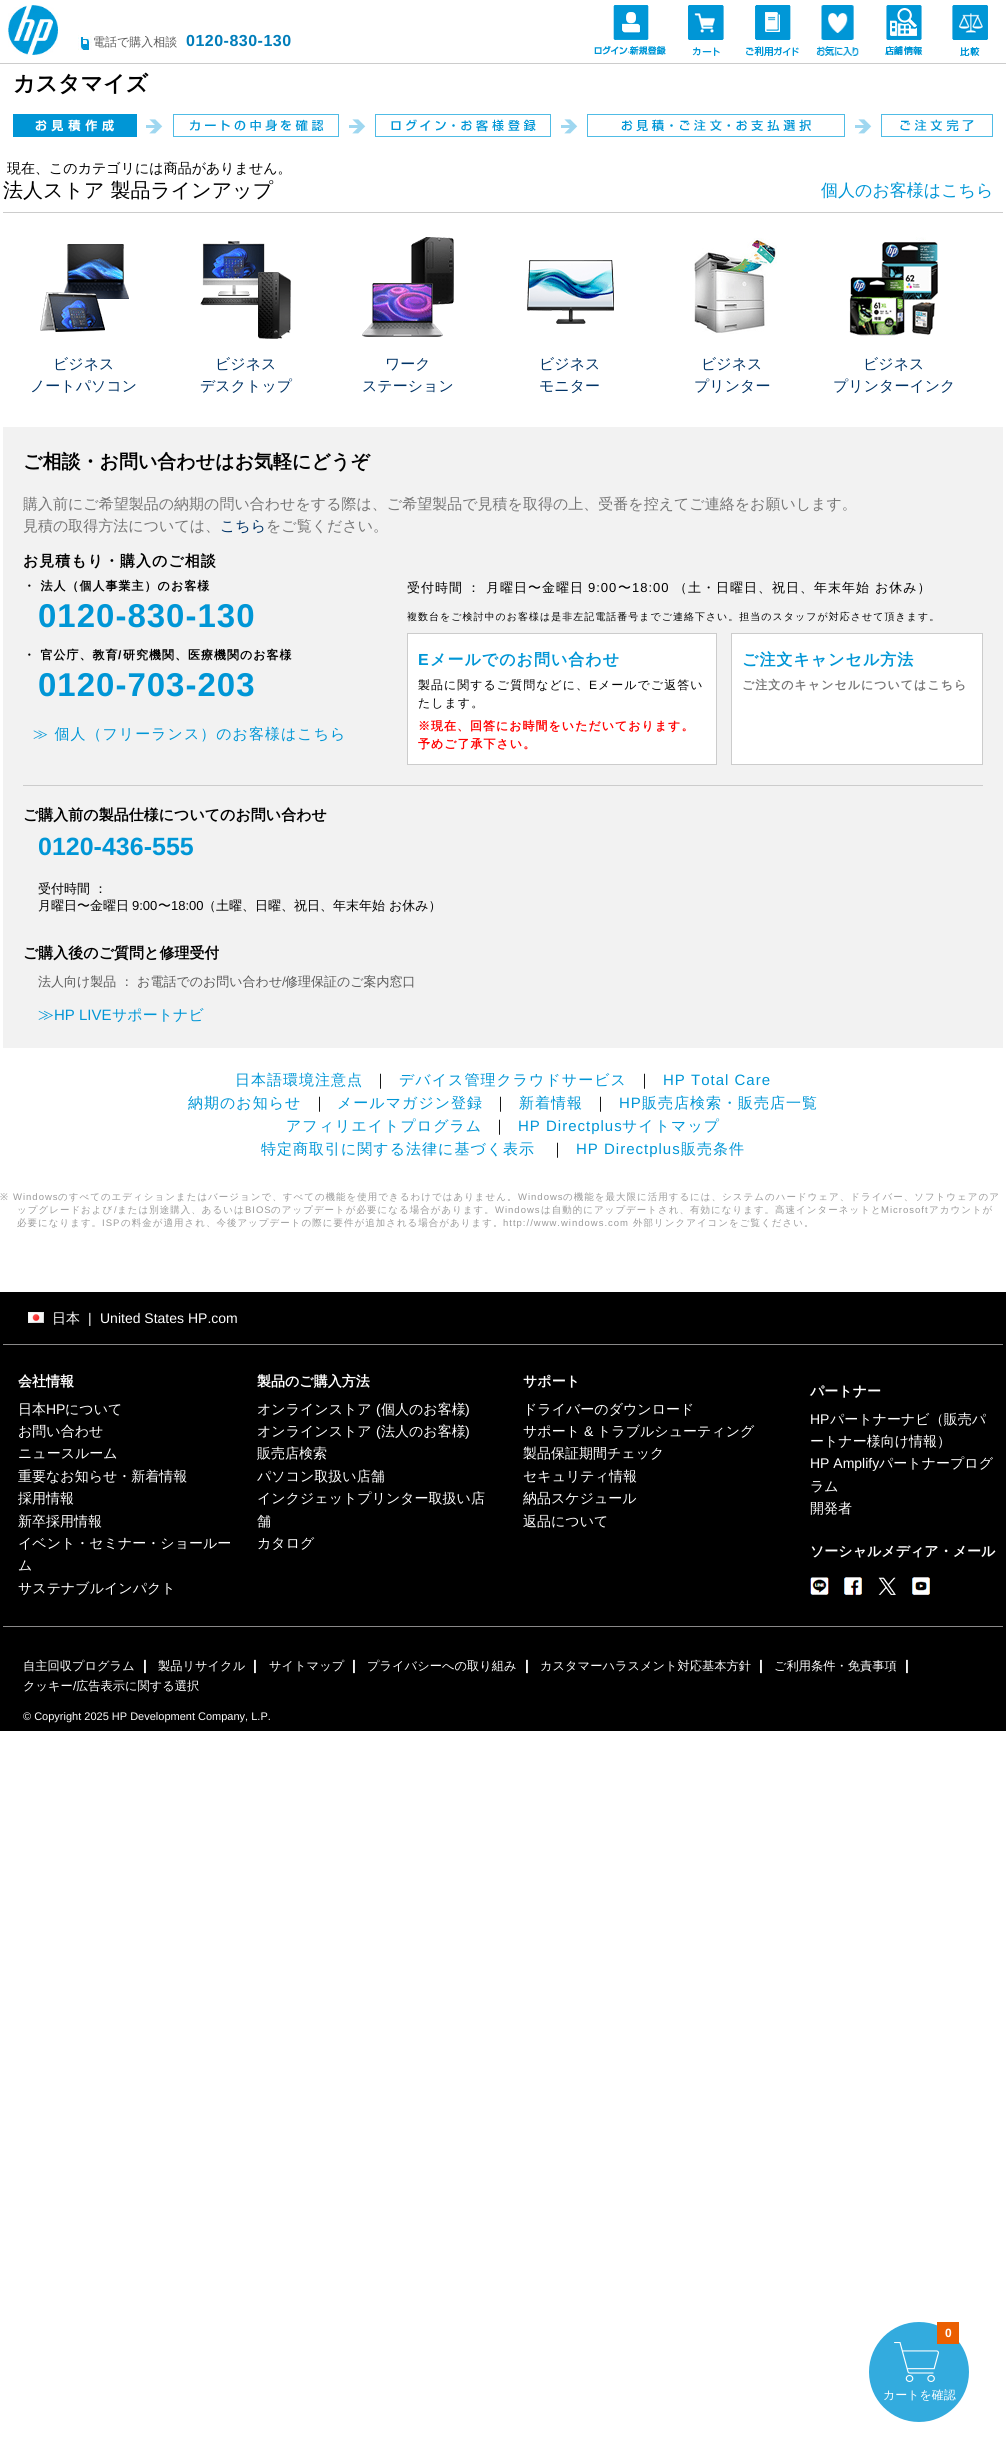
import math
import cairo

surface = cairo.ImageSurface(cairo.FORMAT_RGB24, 1006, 2442)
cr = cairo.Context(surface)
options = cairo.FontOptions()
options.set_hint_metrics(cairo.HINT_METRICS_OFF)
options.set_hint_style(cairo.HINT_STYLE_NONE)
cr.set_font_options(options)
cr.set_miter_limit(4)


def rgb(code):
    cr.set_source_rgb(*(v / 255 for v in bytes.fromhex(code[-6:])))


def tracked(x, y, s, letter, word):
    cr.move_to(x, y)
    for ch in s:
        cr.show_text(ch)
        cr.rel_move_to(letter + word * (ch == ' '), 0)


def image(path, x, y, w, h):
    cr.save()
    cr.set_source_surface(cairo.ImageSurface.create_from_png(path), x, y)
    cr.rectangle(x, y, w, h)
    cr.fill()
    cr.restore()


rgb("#ffffff")
cr.paint()
rgb("#cccccc")
cr.rectangle(0, 63, 1006, 1)
cr.fill()
image("img/1.png", 8, 5, 50, 50)
image("img/2.png", 78, 35, 14, 15)
image("img/3.png", 594, 5, 72, 50)
image("img/4.png", 688, 5, 36, 51)
image("img/5.png", 746, 5, 53, 51)
image("img/6.png", 816, 5, 43, 51)
image("img/7.png", 885, 5, 38, 50)
image("img/8.png", 952, 5, 36, 51)
image("img/9.png", 13, 114, 980, 23)
cr.rectangle(3, 212, 1000, 1)
cr.fill()
image("img/10.png", 40, 244, 89, 88)
image("img/11.png", 200, 241, 91, 98)
image("img/12.png", 362, 237, 92, 100)
image("img/13.png", 527, 260, 88, 64)
image("img/14.png", 694, 238, 83, 96)
image("img/15.png", 849, 237, 89, 99)
rgb("#f2f2f2")
cr.rectangle(3, 427, 1000, 621)
cr.fill()
rgb("#ffffff")
cr.rectangle(407.5, 633.5, 309, 131)
cr.fill_preserve()
rgb("#cccccc")
cr.set_line_width(1)
cr.stroke()
rgb("#ffffff")
cr.rectangle(731.5, 633.5, 251, 131)
cr.fill_preserve()
rgb("#cccccc")
cr.stroke()
cr.rectangle(23, 785, 960, 1)
cr.fill()
rgb("#33abde")
cr.arc(919, 2372, 50, 0, 2 * math.pi)
cr.fill()
image("img/16.png", 894, 2342, 45, 40)
for x, y, w, h, color in [
    (937, 2322, 22, 22, "#eb5f01"),
    (0, 1292, 1006, 439, "#000000"),
    (3, 1344, 1000, 1, "#898888"),
]:
    rgb(color)
    cr.rectangle(x, y, w, h)
    cr.fill()
image("img/17.png", 28, 1312, 16, 11)
cr.rectangle(3, 1626, 1000, 1)
cr.fill()
image("img/18.png", 810, 1577, 19, 18)
image("img/19.png", 844, 1577, 18, 18)
image("img/20.png", 878, 1577, 18, 18)
image("img/21.png", 912, 1577, 18, 18)
cr.select_font_face("WenQuanYi Zen Hei Medium")
cr.set_font_size(12)
rgb("#5a5a5a")
cr.move_to(93, 46)
cr.show_text("電話で購入相談")
cr.select_font_face("Liberation Sans", cairo.FONT_SLANT_NORMAL, cairo.FONT_WEIGHT_BOLD)
cr.set_font_size(16)
rgb("#007dba")
tracked(186, 46, "0120-830-130", 0.5, 0)
cr.select_font_face("WenQuanYi Zen Hei", cairo.FONT_SLANT_NORMAL, cairo.FONT_WEIGHT_BOLD)
cr.set_font_size(22)
rgb("#000000")
cr.move_to(13, 91)
cr.show_text("カスタマイズ")
cr.select_font_face("WenQuanYi Zen Hei Medium")
cr.set_font_size(14)
cr.move_to(7, 173)
cr.show_text("現在、このカテゴリには商品がありません。")
cr.set_font_size(20)
cr.move_to(3, 197)
cr.show_text("法人ストア 製品ラインアップ")
cr.set_font_size(17)
rgb("#0096d6")
cr.move_to(821, 196)
cr.show_text("個人のお客様はこちら")
cr.set_font_size(15)
rgb("#003366")
for x, y, s in [
    (53, 369, "ビジネス"),
    (30, 391, "ノートパソコン"),
    (215, 369, "ビジネス"),
    (200, 391, "デスクトップ"),
    (385, 369, "ワーク"),
    (362, 391, "ステーション"),
    (539, 369, "ビジネス"),
    (539, 391, "モニター"),
    (701, 369, "ビジネス"),
    (694, 391, "プリンター"),
    (863, 369, "ビジネス"),
    (833, 391, "プリンターインク"),
]:
    cr.move_to(x, y)
    cr.show_text(s)
cr.select_font_face("WenQuanYi Zen Hei", cairo.FONT_SLANT_NORMAL, cairo.FONT_WEIGHT_BOLD)
cr.set_font_size(19)
rgb("#000000")
cr.move_to(23, 468)
cr.show_text("ご相談・お問い合わせはお気軽にどうぞ")
cr.select_font_face("WenQuanYi Zen Hei Medium")
cr.set_font_size(15)
rgb("#767676")
cr.move_to(23, 509)
cr.show_text("購入前にご希望製品の納期の問い合わせをする際は、ご希望製品で見積を取得の上、受番を控えてご連絡をお願いします。")
cr.move_to(23, 531)
cr.show_text("見積の取得方法については、")
rgb("#003366")
cr.move_to(220, 531)
cr.show_text("こちら")
rgb("#767676")
cr.move_to(266, 531)
cr.show_text("をご覧ください。")
cr.select_font_face("WenQuanYi Zen Hei", cairo.FONT_SLANT_NORMAL, cairo.FONT_WEIGHT_BOLD)
rgb("#000000")
tracked(23, 566, "お見積もり・購入のご相談", 1, 0)
cr.set_font_size(12)
tracked(23, 590, "・ 法人（個人事業主）のお客様", 1, 0)
cr.select_font_face("Liberation Sans", cairo.FONT_SLANT_NORMAL, cairo.FONT_WEIGHT_BOLD)
cr.set_font_size(33)
rgb("#0096d6")
tracked(38, 627, "0120-830-130", 1, 0)
cr.select_font_face("WenQuanYi Zen Hei", cairo.FONT_SLANT_NORMAL, cairo.FONT_WEIGHT_BOLD)
cr.set_font_size(12)
rgb("#000000")
tracked(23, 659, "・ 官公庁、教育", 1, 0)
cr.select_font_face("Liberation Sans", cairo.FONT_SLANT_NORMAL, cairo.FONT_WEIGHT_BOLD)
tracked(118, 659, "/", 1, 0)
cr.select_font_face("WenQuanYi Zen Hei", cairo.FONT_SLANT_NORMAL, cairo.FONT_WEIGHT_BOLD)
tracked(123, 659, "研究機関、医療機関のお客様", 1, 0)
cr.select_font_face("Liberation Sans", cairo.FONT_SLANT_NORMAL, cairo.FONT_WEIGHT_BOLD)
cr.set_font_size(33)
rgb("#0096d6")
tracked(38, 696, "0120-703-203", 1, 0)
cr.select_font_face("WenQuanYi Zen Hei Medium")
cr.set_font_size(15)
tracked(33, 739, "≫ 個人（フリーランス）のお客様はこちら", 1, 0)
cr.set_font_size(13)
rgb("#000000")
for x, y, s in [
    (407, 592, "受付時間"),
    (467, 592, "："),
    (486, 592, "月曜日〜金曜日"),
]:
    tracked(x, y, s, 1, 0)
cr.select_font_face("Liberation Sans")
tracked(588, 592, "9:00", 1, 0)
cr.select_font_face("WenQuanYi Zen Hei Medium")
tracked(618, 592, "〜", 1, 0)
cr.select_font_face("Liberation Sans")
tracked(632, 592, "18:00", 1, 0)
cr.select_font_face("WenQuanYi Zen Hei Medium")
tracked(674, 592, "（土・日曜日、祝日、年末年始 お休み）", 1, 0)
cr.set_font_size(10)
tracked(407, 620, "複数台をご検討中のお客様は是非左記電話番号までご連絡下さい。担当のスタッフが対応させて頂きます。", 1, 0)
cr.select_font_face("Liberation Sans", cairo.FONT_SLANT_NORMAL, cairo.FONT_WEIGHT_BOLD)
cr.set_font_size(16)
rgb("#0096d6")
tracked(418, 665, "E", 1, 0)
cr.select_font_face("WenQuanYi Zen Hei", cairo.FONT_SLANT_NORMAL, cairo.FONT_WEIGHT_BOLD)
tracked(430, 665, "メールでのお問い合わせ", 1, 0)
cr.select_font_face("WenQuanYi Zen Hei Medium")
cr.set_font_size(12)
rgb("#000000")
tracked(418, 689, "製品に関するご質問などに、", 1, 0)
cr.select_font_face("Liberation Sans")
tracked(589, 689, "E", 1, 0)
cr.select_font_face("WenQuanYi Zen Hei Medium")
tracked(598, 689, "メールでご返答い", 1, 0)
tracked(418, 707, "たします。", 1, 0)
cr.select_font_face("WenQuanYi Zen Hei", cairo.FONT_SLANT_NORMAL, cairo.FONT_WEIGHT_BOLD)
rgb("#ff0000")
tracked(418, 730, "※現在、回答にお時間をいただいております。", 1, 0)
tracked(418, 748, "予めご了承下さい。", 1, 0)
cr.set_font_size(16)
rgb("#0096d6")
tracked(742, 665, "ご注文キャンセル方法", 1, 0)
cr.set_font_size(12)
rgb("#767676")
tracked(742, 689, "ご注文のキャンセルについてはこちら", 1, 0)
cr.set_font_size(15)
rgb("#000000")
cr.move_to(23, 820)
cr.show_text("ご購入前の製品仕様についてのお問い合わせ")
cr.select_font_face("Liberation Sans", cairo.FONT_SLANT_NORMAL, cairo.FONT_WEIGHT_BOLD)
cr.set_font_size(25)
rgb("#0096d6")
cr.move_to(38, 855)
cr.show_text("0120-436-555")
cr.select_font_face("WenQuanYi Zen Hei Medium")
cr.set_font_size(13)
rgb("#000000")
cr.move_to(38, 893)
cr.show_text("受付時間 ：")
cr.move_to(38, 910)
cr.show_text("月曜日〜金曜日")
cr.select_font_face("Liberation Sans")
cr.move_to(132, 910)
cr.show_text("9:00")
cr.select_font_face("WenQuanYi Zen Hei Medium")
cr.move_to(158, 910)
cr.show_text("〜")
cr.select_font_face("Liberation Sans")
cr.move_to(171, 910)
cr.show_text("18:00")
cr.select_font_face("WenQuanYi Zen Hei Medium")
cr.move_to(203, 910)
cr.show_text("（土曜、日曜、祝日、年末年始 お休み）")
cr.select_font_face("WenQuanYi Zen Hei", cairo.FONT_SLANT_NORMAL, cairo.FONT_WEIGHT_BOLD)
cr.set_font_size(15)
cr.move_to(23, 958)
cr.show_text("ご購入後のご質問と修理受付")
cr.select_font_face("WenQuanYi Zen Hei Medium")
cr.set_font_size(13)
rgb("#5a5a5a")
cr.move_to(38, 986)
cr.show_text("法人向け製品 ： お電話でのお問い合わせ")
cr.select_font_face("Liberation Sans")
cr.move_to(282, 986)
cr.show_text("/")
cr.select_font_face("WenQuanYi Zen Hei Medium")
cr.move_to(285, 986)
cr.show_text("修理保証のご案内窓口")
cr.set_font_size(16)
rgb("#0096d6")
cr.move_to(38, 1020)
cr.show_text("≫")
cr.select_font_face("Liberation Sans")
cr.set_font_size(15)
cr.move_to(54, 1020)
cr.show_text("HP LIVE")
cr.select_font_face("WenQuanYi Zen Hei Medium")
cr.move_to(112, 1020)
cr.show_text("サポートナビ")
tracked(235, 1085, "日本語環境注意点", 1, 0)
rgb("#000000")
tracked(373, 1085, "｜", 1, 0)
rgb("#0096d6")
tracked(399, 1085, "デバイス管理クラウドサービス", 1, 0)
rgb("#000000")
tracked(637, 1085, "｜", 1, 0)
cr.select_font_face("Liberation Sans")
rgb("#0096d6")
tracked(663, 1085, "HP Total Care", 1, 0)
cr.select_font_face("WenQuanYi Zen Hei Medium")
tracked(188, 1108, "納期のお知らせ", 1, 0)
rgb("#000000")
tracked(312, 1108, "｜", 1, 0)
rgb("#0096d6")
tracked(337, 1108, "メールマガジン登録", 1, 0)
rgb("#000000")
tracked(493, 1108, "｜", 1, 0)
rgb("#0096d6")
tracked(519, 1108, "新着情報", 1, 0)
rgb("#000000")
tracked(593, 1108, "｜", 1, 0)
cr.select_font_face("Liberation Sans")
rgb("#0096d6")
tracked(619, 1108, "HP", 1, 0)
cr.select_font_face("WenQuanYi Zen Hei Medium")
tracked(642, 1108, "販売店検索・販売店一覧", 1, 0)
tracked(286, 1131, "アフィリエイトプログラム", 1, 0)
rgb("#000000")
tracked(492, 1131, "｜", 1, 0)
cr.select_font_face("Liberation Sans")
rgb("#0096d6")
tracked(518, 1131, "HP Directplus", 1, 0)
cr.select_font_face("WenQuanYi Zen Hei Medium")
tracked(622, 1131, "サイトマップ", 1, 0)
tracked(261, 1154, "特定商取引に関する法律に基づく表示", 1, 0)
rgb("#000000")
tracked(550, 1154, "｜", 1, 0)
cr.select_font_face("Liberation Sans")
rgb("#0096d6")
tracked(576, 1154, "HP Directplus", 1, 0)
cr.select_font_face("WenQuanYi Zen Hei Medium")
tracked(681, 1154, "販売条件", 1, 0)
cr.select_font_face("Noto Sans")
cr.set_font_size(9.5)
rgb("#999999")
tracked(0, 1200, "※", 1, 0)
cr.select_font_face("Liberation Sans")
tracked(13, 1200, "Windows", 1, 0)
cr.select_font_face("WenQuanYi Zen Hei Medium")
tracked(58, 1200, "のすべてのエディションまたはバージョンで、すべての機能を使用できるわけではありません。", 1, 0)
cr.select_font_face("Liberation Sans")
tracked(518, 1200, "Windows", 1, 0)
cr.select_font_face("WenQuanYi Zen Hei Medium")
for x, y, s in [
    (563, 1200, "の機能を最大限に活用するには、システムのハードウェア、ドライバー、ソフトウェアのア"),
    (17, 1213, "ップグレードおよび または別途購入、あるいは"),
    (271, 1213, "のアップデートが必要になる場合があります。"),
    (541, 1213, "は自動的にアップデートされ、有効になります。高速インターネットと"),
    (929, 1213, "アカウントが"),
]:
    tracked(x, y, s, 1, 0)
cr.select_font_face("Liberation Sans")
for x, y, s in [
    (114, 1213, "/"),
    (245, 1213, "BIOS"),
    (495, 1213, "Windows"),
    (881, 1213, "Microsoft"),
]:
    tracked(x, y, s, 1, 0)
cr.select_font_face("WenQuanYi Zen Hei Medium")
tracked(17, 1226, "必要になります。", 1, 0)
cr.select_font_face("Liberation Sans")
tracked(102, 1226, "ISP", 1, 0)
cr.select_font_face("WenQuanYi Zen Hei Medium")
tracked(121, 1226, "の料金が適用され、今後アップデートの際に要件が追加される場合があります。", 1, 0)
cr.select_font_face("Liberation Sans")
tracked(503, 1226, "http://www.windows.com", 1, 0)
cr.select_font_face("WenQuanYi Zen Hei Medium")
tracked(633, 1226, "外部リンクアイコンをご覧ください。", 1, 0)
cr.select_font_face("Liberation Sans", cairo.FONT_SLANT_NORMAL, cairo.FONT_WEIGHT_BOLD)
cr.set_font_size(12)
rgb("#ffffff")
cr.move_to(945, 2337)
cr.show_text("0")
cr.select_font_face("WenQuanYi Zen Hei Medium")
cr.move_to(883, 2399)
cr.show_text("カートを確認")
cr.set_font_size(14)
cr.move_to(52, 1323)
cr.show_text("日本")
cr.select_font_face("Liberation Sans")
cr.move_to(88, 1323)
cr.show_text("|")
cr.move_to(100, 1323)
cr.show_text("United States HP.com")
cr.select_font_face("WenQuanYi Zen Hei", cairo.FONT_SLANT_NORMAL, cairo.FONT_WEIGHT_BOLD)
cr.move_to(18, 1386)
cr.show_text("会社情報")
cr.select_font_face("WenQuanYi Zen Hei Medium")
cr.move_to(18, 1414)
cr.show_text("日本")
cr.select_font_face("Liberation Sans")
cr.move_to(46, 1414)
cr.show_text("HP")
cr.select_font_face("WenQuanYi Zen Hei Medium")
for x, y, s in [
    (65, 1414, "について"),
    (18, 1436, "お問い合わせ"),
    (18, 1458, "ニュースルーム"),
    (18, 1481, "重要なお知らせ・新着情報"),
    (18, 1503, "採用情報"),
    (18, 1526, "新卒採用情報"),
    (18, 1548, "イベント・セミナー・ショールー"),
    (18, 1570, "ム"),
    (18, 1593, "サステナブルインパクト"),
]:
    cr.move_to(x, y)
    cr.show_text(s)
cr.select_font_face("WenQuanYi Zen Hei", cairo.FONT_SLANT_NORMAL, cairo.FONT_WEIGHT_BOLD)
cr.move_to(257, 1386)
cr.show_text("製品のご購入方法")
cr.select_font_face("WenQuanYi Zen Hei Medium")
cr.move_to(257, 1414)
cr.show_text("オンラインストア")
cr.select_font_face("Liberation Sans")
cr.move_to(376, 1414)
cr.show_text("(")
cr.select_font_face("WenQuanYi Zen Hei Medium")
cr.move_to(381, 1414)
cr.show_text("個人のお客様")
cr.select_font_face("Liberation Sans")
cr.move_to(465, 1414)
cr.show_text(")")
cr.select_font_face("WenQuanYi Zen Hei Medium")
cr.move_to(257, 1436)
cr.show_text("オンラインストア")
cr.select_font_face("Liberation Sans")
cr.move_to(376, 1436)
cr.show_text("(")
cr.select_font_face("WenQuanYi Zen Hei Medium")
cr.move_to(381, 1436)
cr.show_text("法人のお客様")
cr.select_font_face("Liberation Sans")
cr.move_to(465, 1436)
cr.show_text(")")
cr.select_font_face("WenQuanYi Zen Hei Medium")
for x, y, s in [
    (257, 1458, "販売店検索"),
    (257, 1481, "パソコン取扱い店舗"),
    (257, 1503, "インクジェットプリンター取扱い店"),
    (257, 1526, "舗"),
    (257, 1548, "カタログ"),
]:
    cr.move_to(x, y)
    cr.show_text(s)
cr.select_font_face("WenQuanYi Zen Hei", cairo.FONT_SLANT_NORMAL, cairo.FONT_WEIGHT_BOLD)
cr.move_to(523, 1386)
cr.show_text("サポート")
cr.select_font_face("WenQuanYi Zen Hei Medium")
cr.move_to(523, 1414)
cr.show_text("ドライバーのダウンロード")
cr.move_to(523, 1436)
cr.show_text("サポート")
cr.select_font_face("Liberation Sans")
cr.move_to(584, 1436)
cr.show_text("&")
cr.select_font_face("WenQuanYi Zen Hei Medium")
for x, y, s in [
    (597, 1436, "トラブルシューティング"),
    (523, 1458, "製品保証期間チェック"),
    (523, 1481, "セキュリティ情報"),
    (523, 1503, "納品スケジュール"),
    (523, 1526, "返品について"),
]:
    cr.move_to(x, y)
    cr.show_text(s)
cr.select_font_face("WenQuanYi Zen Hei", cairo.FONT_SLANT_NORMAL, cairo.FONT_WEIGHT_BOLD)
cr.move_to(810, 1396)
cr.show_text("パートナー")
cr.select_font_face("Liberation Sans")
cr.move_to(810, 1424)
cr.show_text("HP")
cr.select_font_face("WenQuanYi Zen Hei Medium")
cr.move_to(830, 1424)
cr.show_text("パートナーナビ（販売パ")
cr.move_to(810, 1446)
cr.show_text("ートナー様向け情報）")
cr.select_font_face("Liberation Sans")
cr.move_to(810, 1468)
cr.show_text("HP Amplify")
cr.select_font_face("WenQuanYi Zen Hei Medium")
for x, y, s in [
    (879, 1468, "パートナープログ"),
    (810, 1491, "ラム"),
    (810, 1513, "開発者"),
]:
    cr.move_to(x, y)
    cr.show_text(s)
cr.select_font_face("WenQuanYi Zen Hei", cairo.FONT_SLANT_NORMAL, cairo.FONT_WEIGHT_BOLD)
cr.move_to(810, 1556)
cr.show_text("ソーシャルメディア・メール")
cr.select_font_face("WenQuanYi Zen Hei Medium")
cr.set_font_size(12.25)
cr.move_to(23, 1670)
cr.show_text("自主回収プログラム")
cr.select_font_face("Liberation Sans", cairo.FONT_SLANT_NORMAL, cairo.FONT_WEIGHT_BOLD)
cr.set_font_size(14)
cr.move_to(143, 1670)
cr.show_text("|")
cr.select_font_face("WenQuanYi Zen Hei Medium")
cr.set_font_size(12.25)
cr.move_to(158, 1670)
cr.show_text("製品リサイクル")
cr.select_font_face("Liberation Sans", cairo.FONT_SLANT_NORMAL, cairo.FONT_WEIGHT_BOLD)
cr.set_font_size(14)
cr.move_to(253, 1670)
cr.show_text("|")
cr.select_font_face("WenQuanYi Zen Hei Medium")
cr.set_font_size(12.25)
cr.move_to(269, 1670)
cr.show_text("サイトマップ")
cr.select_font_face("Liberation Sans", cairo.FONT_SLANT_NORMAL, cairo.FONT_WEIGHT_BOLD)
cr.set_font_size(14)
cr.move_to(352, 1670)
cr.show_text("|")
cr.select_font_face("WenQuanYi Zen Hei Medium")
cr.set_font_size(12.25)
cr.move_to(367, 1670)
cr.show_text("プライバシーへの取り組み")
cr.select_font_face("Liberation Sans", cairo.FONT_SLANT_NORMAL, cairo.FONT_WEIGHT_BOLD)
cr.set_font_size(14)
cr.move_to(525, 1670)
cr.show_text("|")
cr.select_font_face("WenQuanYi Zen Hei Medium")
cr.set_font_size(12.25)
cr.move_to(540, 1670)
cr.show_text("カスタマーハラスメント対応基本方針")
cr.select_font_face("Liberation Sans", cairo.FONT_SLANT_NORMAL, cairo.FONT_WEIGHT_BOLD)
cr.set_font_size(14)
cr.move_to(759, 1670)
cr.show_text("|")
cr.select_font_face("WenQuanYi Zen Hei Medium")
cr.set_font_size(12.25)
cr.move_to(774, 1670)
cr.show_text("ご利用条件・免責事項")
cr.select_font_face("Liberation Sans", cairo.FONT_SLANT_NORMAL, cairo.FONT_WEIGHT_BOLD)
cr.set_font_size(14)
cr.move_to(905, 1670)
cr.show_text("|")
cr.select_font_face("WenQuanYi Zen Hei Medium")
cr.set_font_size(12.25)
cr.move_to(23, 1690)
cr.show_text("クッキー")
cr.select_font_face("Liberation Sans")
cr.move_to(73, 1690)
cr.show_text("/")
cr.select_font_face("WenQuanYi Zen Hei Medium")
cr.move_to(76, 1690)
cr.show_text("広告表示に関する選択")
cr.select_font_face("Liberation Sans")
cr.set_font_size(11)
cr.move_to(23, 1720)
cr.show_text("© Copyright 2025 HP Development Company, L.P.")
surface.write_to_png("page.png")
